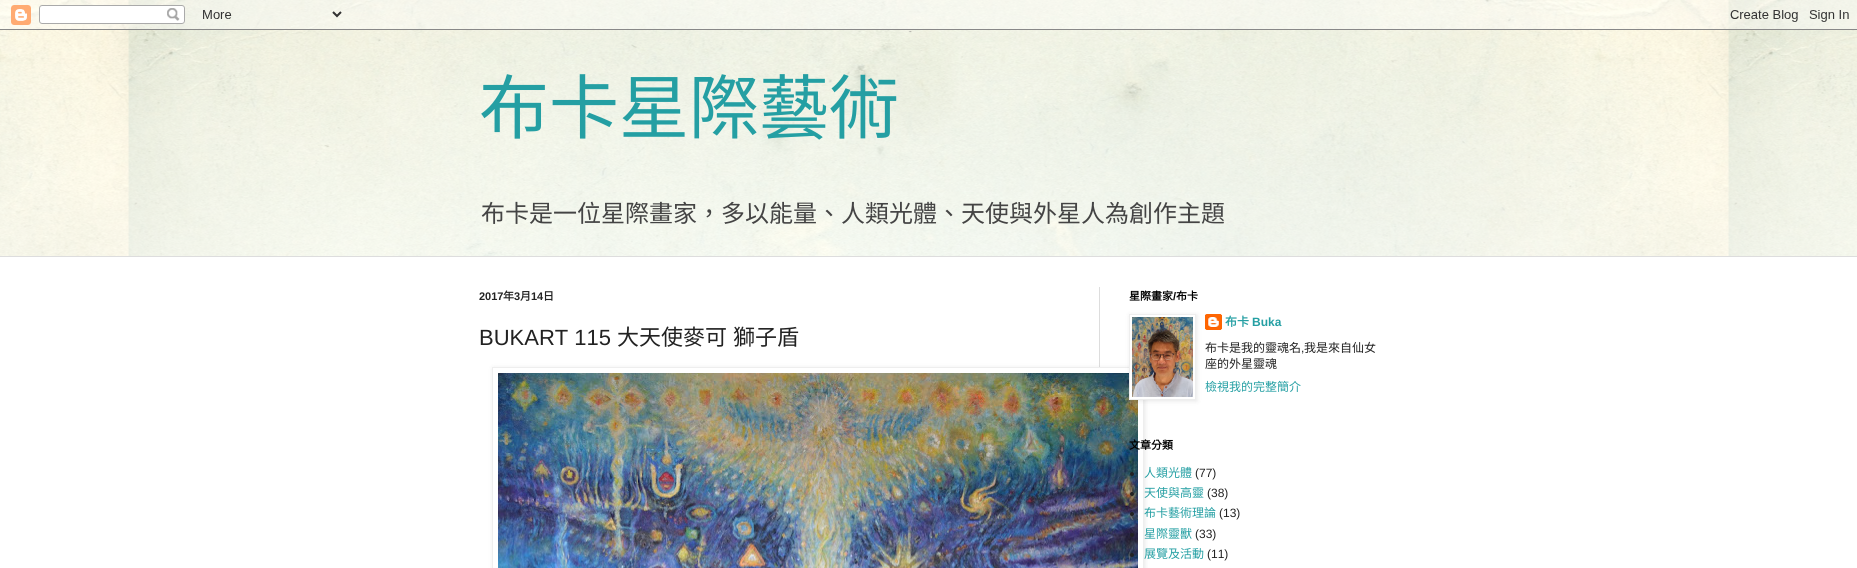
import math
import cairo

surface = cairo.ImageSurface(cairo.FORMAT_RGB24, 1857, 568)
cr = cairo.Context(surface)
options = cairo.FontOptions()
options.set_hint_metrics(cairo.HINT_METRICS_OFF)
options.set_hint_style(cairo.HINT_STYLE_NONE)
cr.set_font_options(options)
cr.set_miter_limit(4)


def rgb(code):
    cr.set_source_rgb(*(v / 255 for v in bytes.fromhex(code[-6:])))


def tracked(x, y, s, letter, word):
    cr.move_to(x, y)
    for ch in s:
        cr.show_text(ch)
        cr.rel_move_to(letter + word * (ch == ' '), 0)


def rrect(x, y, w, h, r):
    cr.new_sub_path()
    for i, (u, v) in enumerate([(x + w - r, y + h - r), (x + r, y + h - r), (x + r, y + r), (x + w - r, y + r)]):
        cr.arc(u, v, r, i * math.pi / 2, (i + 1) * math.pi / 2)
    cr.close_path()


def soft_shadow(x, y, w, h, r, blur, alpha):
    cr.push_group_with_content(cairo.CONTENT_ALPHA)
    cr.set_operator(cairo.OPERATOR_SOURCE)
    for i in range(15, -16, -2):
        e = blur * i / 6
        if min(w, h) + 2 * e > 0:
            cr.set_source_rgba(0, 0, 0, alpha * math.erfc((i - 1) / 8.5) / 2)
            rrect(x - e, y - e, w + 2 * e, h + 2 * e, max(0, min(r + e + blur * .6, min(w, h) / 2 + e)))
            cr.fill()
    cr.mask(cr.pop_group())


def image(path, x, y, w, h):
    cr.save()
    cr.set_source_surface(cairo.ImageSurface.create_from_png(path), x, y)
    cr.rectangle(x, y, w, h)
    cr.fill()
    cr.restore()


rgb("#ffffff")
cr.paint()
image("img/1.png", 0, 0, 1857, 256)
image("img/2.png", 0, 0, 1857, 256)
image("img/3.png", 0, 0, 1857, 30)
rgb("#dddddd")
cr.rectangle(0, 256, 1857, 1)
cr.fill()
cr.rectangle(1099, 287, 1, 80)
cr.fill()
rgb("#000000")
soft_shadow(493, 368, 652, 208, 0, 2.5, 0.1)
rgb("#ffffff")
cr.rectangle(492.5, 367.5, 651, 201)
cr.fill_preserve()
rgb("#eeeeee")
cr.set_line_width(1)
cr.stroke()
image("img/4.png", 498, 373, 640, 195)
image("img/6.png", 1205, 314, 17, 16)
rgb("#000000")
soft_shadow(1130, 315, 67, 86, 0, 2.5, 0.1)
rgb("#ffffff")
cr.rectangle(1129.5, 314.5, 66, 85)
cr.fill_preserve()
rgb("#eeeeee")
cr.stroke()
image("img/5.png", 1132, 317, 61, 80)
rgb("#222222")
cr.arc(1132, 474, 2, 0, 2 * math.pi)
cr.fill()
cr.arc(1132, 494, 2, 0, 2 * math.pi)
cr.fill()
cr.arc(1132, 514, 2, 0, 2 * math.pi)
cr.fill()
cr.arc(1132, 535, 2, 0, 2 * math.pi)
cr.fill()
cr.arc(1132, 555, 2, 0, 2 * math.pi)
cr.fill()
cr.select_font_face("Noto Sans CJK TC")
cr.set_font_size(70)
rgb("#249fa3")
cr.move_to(479, 133)
cr.show_text("布卡星際藝術")
cr.set_font_size(24)
rgb("#444444")
cr.move_to(481, 222)
cr.show_text("布卡是一位星際畫家，多以能量、人類光體、天使與外星人為創作主題")
cr.select_font_face("Liberation Sans", cairo.FONT_SLANT_NORMAL, cairo.FONT_WEIGHT_BOLD)
cr.set_font_size(11)
rgb("#222222")
cr.move_to(479, 300)
cr.show_text("2017")
cr.select_font_face("Noto Sans CJK TC", cairo.FONT_SLANT_NORMAL, cairo.FONT_WEIGHT_BOLD)
cr.move_to(503, 300)
cr.show_text("年")
cr.select_font_face("Liberation Sans", cairo.FONT_SLANT_NORMAL, cairo.FONT_WEIGHT_BOLD)
cr.move_to(514, 300)
cr.show_text("3")
cr.select_font_face("Noto Sans CJK TC", cairo.FONT_SLANT_NORMAL, cairo.FONT_WEIGHT_BOLD)
cr.move_to(520, 300)
cr.show_text("月")
cr.select_font_face("Liberation Sans", cairo.FONT_SLANT_NORMAL, cairo.FONT_WEIGHT_BOLD)
cr.move_to(531, 300)
cr.show_text("14")
cr.select_font_face("Noto Sans CJK TC", cairo.FONT_SLANT_NORMAL, cairo.FONT_WEIGHT_BOLD)
cr.move_to(543, 300)
cr.show_text("日")
cr.select_font_face("Liberation Sans")
cr.set_font_size(22)
cr.move_to(479, 345)
cr.show_text("BUKART 115")
cr.select_font_face("Noto Sans CJK TC")
tracked(617, 345, "大天使麥可 獅子盾", 0, 1)
cr.select_font_face("Noto Sans CJK TC", cairo.FONT_SLANT_NORMAL, cairo.FONT_WEIGHT_BOLD)
cr.set_font_size(11)
rgb("#000000")
cr.move_to(1129, 300)
cr.show_text("星際畫家")
cr.select_font_face("Liberation Sans", cairo.FONT_SLANT_NORMAL, cairo.FONT_WEIGHT_BOLD)
cr.move_to(1173, 300)
cr.show_text("/")
cr.select_font_face("Noto Sans CJK TC", cairo.FONT_SLANT_NORMAL, cairo.FONT_WEIGHT_BOLD)
cr.move_to(1176, 300)
cr.show_text("布卡")
cr.set_font_size(12)
rgb("#249fa3")
cr.move_to(1225, 326)
cr.show_text("布卡")
cr.select_font_face("Liberation Sans", cairo.FONT_SLANT_NORMAL, cairo.FONT_WEIGHT_BOLD)
cr.move_to(1252, 326)
cr.show_text("Buka")
cr.select_font_face("Noto Sans CJK TC")
rgb("#222222")
cr.move_to(1205, 352)
cr.show_text("布卡是我的靈魂名")
cr.select_font_face("Liberation Sans")
cr.move_to(1301, 352)
cr.show_text(",")
cr.select_font_face("Noto Sans CJK TC")
cr.move_to(1304, 352)
cr.show_text("我是來自仙女")
cr.move_to(1205, 368)
cr.show_text("座的外星靈魂")
rgb("#249fa3")
cr.move_to(1205, 391)
cr.show_text("檢視我的完整簡介")
cr.select_font_face("Noto Sans CJK TC", cairo.FONT_SLANT_NORMAL, cairo.FONT_WEIGHT_BOLD)
cr.set_font_size(11)
rgb("#000000")
cr.move_to(1129, 449)
cr.show_text("文章分類")
cr.select_font_face("Noto Sans CJK TC")
cr.set_font_size(12)
rgb("#249fa3")
cr.move_to(1144, 477)
cr.show_text("人類光體")
cr.select_font_face("Liberation Sans")
rgb("#222222")
cr.move_to(1195, 477)
cr.show_text("(77)")
cr.select_font_face("Noto Sans CJK TC")
rgb("#249fa3")
cr.move_to(1144, 497)
cr.show_text("天使與高靈")
cr.select_font_face("Liberation Sans")
rgb("#222222")
cr.move_to(1207, 497)
cr.show_text("(38)")
cr.select_font_face("Noto Sans CJK TC")
rgb("#249fa3")
cr.move_to(1144, 517)
cr.show_text("布卡藝術理論")
cr.select_font_face("Liberation Sans")
rgb("#222222")
cr.move_to(1219, 517)
cr.show_text("(13)")
cr.select_font_face("Noto Sans CJK TC")
rgb("#249fa3")
cr.move_to(1144, 538)
cr.show_text("星際靈獸")
cr.select_font_face("Liberation Sans")
rgb("#222222")
cr.move_to(1195, 538)
cr.show_text("(33)")
cr.select_font_face("Noto Sans CJK TC")
rgb("#249fa3")
cr.move_to(1144, 558)
cr.show_text("展覽及活動")
cr.select_font_face("Liberation Sans")
rgb("#222222")
cr.move_to(1207, 558)
cr.show_text("(11)")
surface.write_to_png("page.png")
